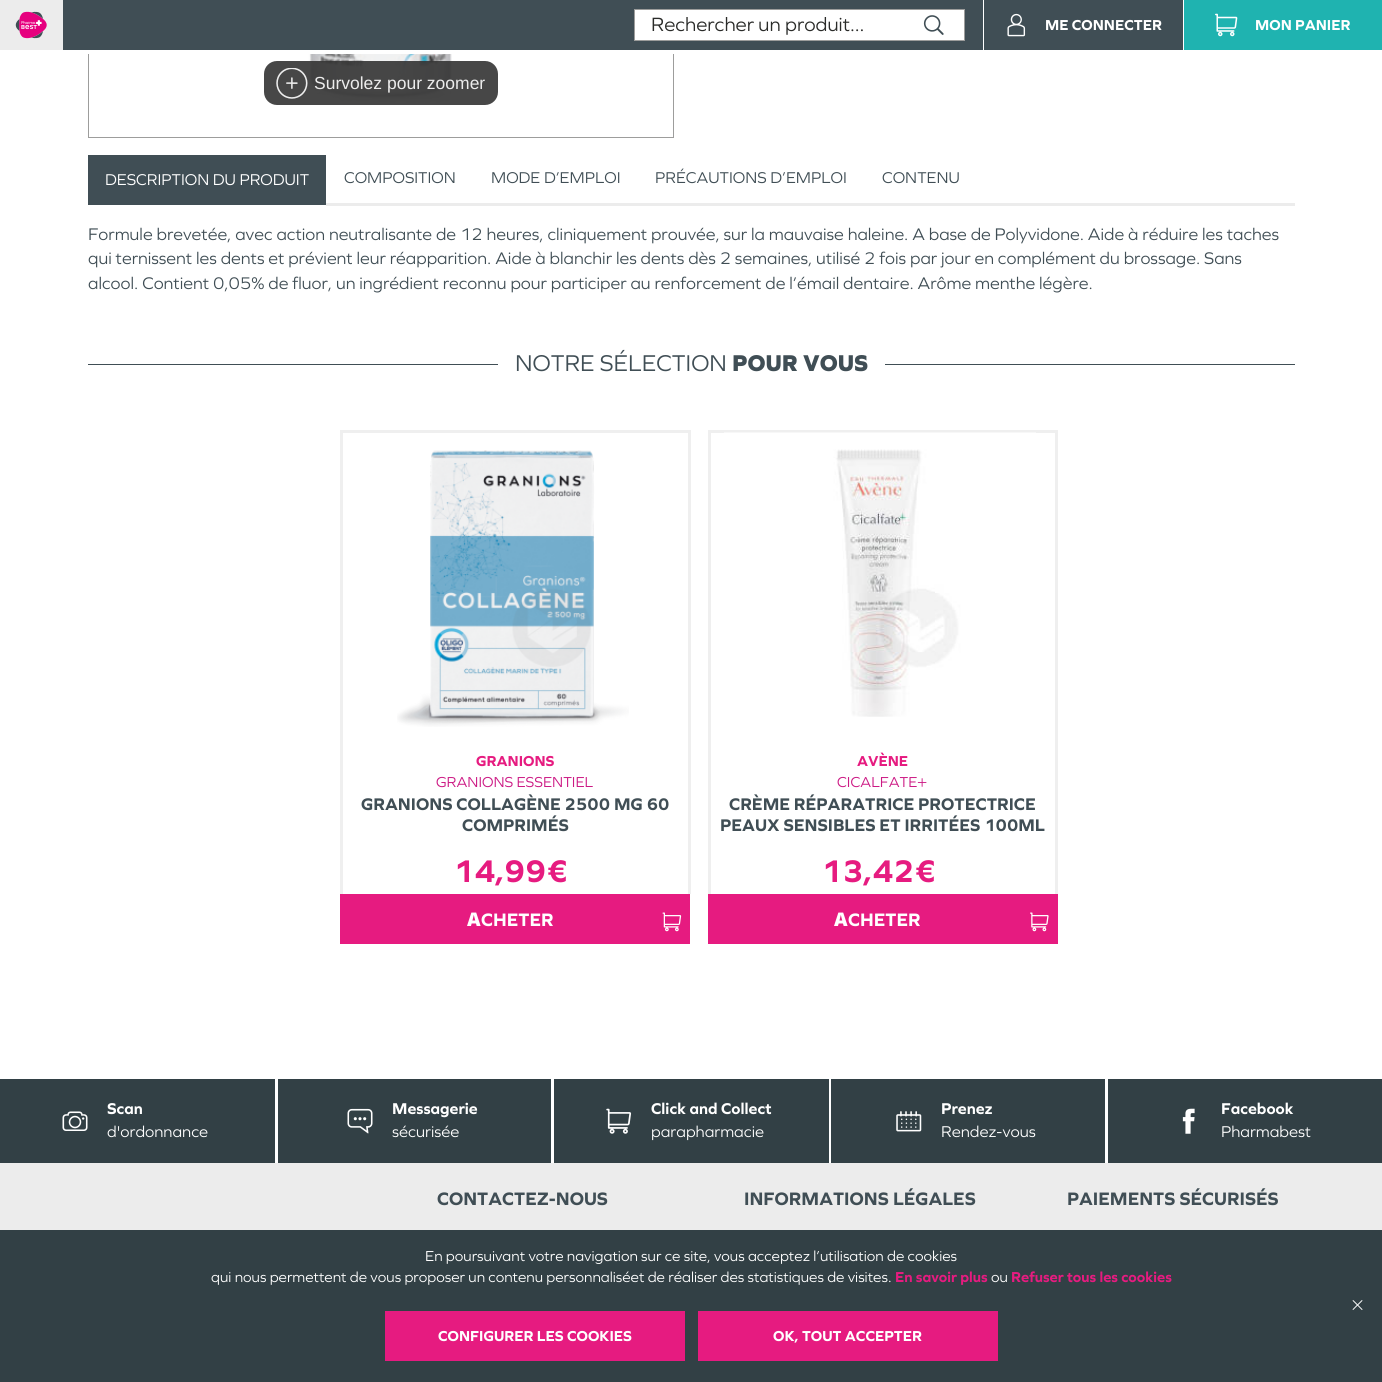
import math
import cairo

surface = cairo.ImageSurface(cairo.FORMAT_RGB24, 1382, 1382)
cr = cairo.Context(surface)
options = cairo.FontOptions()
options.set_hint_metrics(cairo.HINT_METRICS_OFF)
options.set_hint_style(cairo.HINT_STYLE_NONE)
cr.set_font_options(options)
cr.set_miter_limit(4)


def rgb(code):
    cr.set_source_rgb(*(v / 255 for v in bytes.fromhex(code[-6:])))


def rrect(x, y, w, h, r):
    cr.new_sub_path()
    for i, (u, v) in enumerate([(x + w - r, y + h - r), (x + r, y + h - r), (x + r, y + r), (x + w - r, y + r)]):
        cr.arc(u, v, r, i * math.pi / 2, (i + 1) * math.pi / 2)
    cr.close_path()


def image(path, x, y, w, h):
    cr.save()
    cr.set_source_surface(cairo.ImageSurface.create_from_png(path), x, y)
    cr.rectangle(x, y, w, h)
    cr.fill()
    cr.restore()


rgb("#ffffff")
cr.paint()
cr.rectangle(88.5, -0.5, 585, 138)
rgb("#9d9d9c")
cr.set_line_width(1)
cr.stroke()
rgb("#ffffff")
cr.rectangle(88, 50, 586, 4)
cr.fill()
rgb("#ececec")
cr.rectangle(0, 0, 63, 50)
cr.fill()
image("img/1.png", 15, 11, 32, 28)
rgb("#404e55")
cr.rectangle(63, 0, 920, 50)
cr.fill()
rgb("#ffffff")
cr.rectangle(634.5, 9.5, 330, 31)
cr.fill_preserve()
rgb("#9d9d9c")
cr.stroke()
image("img/2.png", 923, 15, 21, 20)
rgb("#404e55")
cr.rectangle(984, 0, 199, 50)
cr.fill()
image("img/3.png", 1007, 13, 19, 24)
rgb("#1fb3b0")
cr.rectangle(1184, 0, 198, 50)
cr.fill()
image("img/4.png", 1215, 13, 23, 24)
image("img/5.png", 308, 54, 144, 49)
cr.set_source_rgba(0.2, 0.2, 0.2, 0.9)
rrect(264, 61, 234, 44, 13)
cr.fill()
image("img/6.png", 276, 68, 32, 31)
for x, y, w, h, color in [
    (88, 155, 238, 50, "#404e55"),
    (326, 203, 969, 3, "#ececec"),
    (88, 364, 410, 1, "#404e55"),
    (885, 364, 410, 1, "#404e55"),
    (340, 430, 350, 3, "#efefef"),
    (688, 430, 3, 464, "#efefef"),
    (340, 430, 3, 464, "#efefef"),
]:
    rgb(color)
    cr.rectangle(x, y, w, h)
    cr.fill()
image("img/7.png", 397, 450, 232, 277)
rgb("#e61b80")
cr.rectangle(340, 894, 350, 50)
cr.fill()
image("img/8.png", 662, 912, 20, 20)
for x, y, w, h, color in [
    (708, 430, 350, 3, "#efefef"),
    (1055, 430, 3, 464, "#efefef"),
    (708, 430, 3, 464, "#efefef"),
]:
    rgb(color)
    cr.rectangle(x, y, w, h)
    cr.fill()
image("img/9.png", 724, 432, 312, 285)
rgb("#e61b80")
cr.rectangle(708, 894, 350, 50)
cr.fill()
image("img/10.png", 1030, 912, 19, 20)
rgb("#324045")
cr.rectangle(0, 1079, 275, 84)
cr.fill()
image("img/11.png", 62, 1111, 26, 20)
cr.rectangle(278, 1079, 273, 84)
cr.fill()
image("img/12.png", 347, 1108, 26, 26)
cr.rectangle(554, 1079, 275, 84)
cr.fill()
image("img/13.png", 606, 1108, 26, 26)
cr.rectangle(831, 1079, 274, 84)
cr.fill()
image("img/14.png", 896, 1111, 26, 21)
cr.rectangle(1108, 1079, 274, 84)
cr.fill()
image("img/15.png", 1182, 1108, 13, 26)
for x, y, w, h, color in [
    (0, 1163, 1382, 67, "#ececec"),
    (0, 1230, 1382, 152, "#324045"),
    (385, 1311, 300, 50, "#e61b80"),
    (698, 1311, 300, 50, "#e61b80"),
]:
    rgb(color)
    cr.rectangle(x, y, w, h)
    cr.fill()
image("img/16.png", 1352, 1300, 11, 10)
cr.select_font_face("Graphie")
cr.set_font_size(20)
rgb("#2a2b29")
cr.move_to(651, 31)
cr.show_text("Rechercher un produit...")
cr.select_font_face("Graphie", cairo.FONT_SLANT_NORMAL, cairo.FONT_WEIGHT_BOLD)
cr.set_font_size(15)
rgb("#ffffff")
cr.move_to(1045, 30)
cr.show_text("ME CONNECTER")
cr.move_to(1255, 30)
cr.show_text("MON PANIER")
cr.select_font_face("Liberation Sans")
cr.set_font_size(17.5)
rgb("#ececec")
cr.move_to(314, 89)
cr.show_text("Survolez pour zoomer")
cr.select_font_face("Graphie")
cr.set_font_size(16.25)
rgb("#ffffff")
cr.move_to(105, 185)
cr.show_text("DESCRIPTION DU PRODUIT")
rgb("#404e55")
for x, y, s in [
    (344, 183, "COMPOSITION"),
    (491, 183, "MODE D’EMPLOI"),
    (655, 183, "PRÉCAUTIONS D’EMPLOI"),
    (882, 183, "CONTENU"),
]:
    cr.move_to(x, y)
    cr.show_text(s)
cr.set_font_size(17.5)
for x, y, s in [
    (88, 240, "Formule brevetée, avec action neutralisante de 12 heures, cliniquement prouvée, sur la mauvaise haleine. A base de Polyvidone. Aide à réduire les taches"),
    (88, 264, "qui ternissent les dents et prévient leur réapparition. Aide à blanchir les dents dès 2 semaines, utilisé 2 fois par jour en complément du brossage. Sans"),
    (88, 289, "alcool. Contient 0,05% de fluor, un ingrédient reconnu pour participer au renforcement de l’émail dentaire. Arôme menthe légère."),
]:
    cr.move_to(x, y)
    cr.show_text(s)
cr.set_font_size(23.75)
cr.move_to(515, 371)
cr.show_text("NOTRE SÉLECTION")
cr.select_font_face("Graphie ExtraBold")
cr.move_to(732, 371)
cr.show_text("POUR VOUS")
cr.select_font_face("Graphie", cairo.FONT_SLANT_NORMAL, cairo.FONT_WEIGHT_BOLD)
cr.set_font_size(15)
rgb("#e61b80")
cr.move_to(476, 766)
cr.show_text("GRANIONS")
cr.select_font_face("Graphie")
rgb("#cc1984")
cr.move_to(436, 787)
cr.show_text("GRANIONS ESSENTIEL")
cr.select_font_face("Graphie", cairo.FONT_SLANT_NORMAL, cairo.FONT_WEIGHT_BOLD)
cr.set_font_size(17.5)
rgb("#404e55")
cr.move_to(361, 810)
cr.show_text("GRANIONS COLLAGÈNE 2500 MG 60")
cr.move_to(462, 831)
cr.show_text("COMPRIMÉS")
cr.set_font_size(32.5)
rgb("#e61b80")
cr.move_to(453, 882)
cr.show_text("14,99€")
cr.select_font_face("Noto Sans Black")
cr.set_font_size(18.75)
rgb("#ffffff")
cr.move_to(467, 926)
cr.show_text("A")
cr.select_font_face("Graphie", cairo.FONT_SLANT_NORMAL, cairo.FONT_WEIGHT_BOLD)
cr.move_to(481, 926)
cr.show_text("CHETER")
cr.set_font_size(15)
rgb("#e61b80")
cr.move_to(857, 766)
cr.show_text("AVÈNE")
cr.select_font_face("Graphie")
rgb("#cc1984")
cr.move_to(837, 787)
cr.show_text("CICALFATE+")
cr.select_font_face("Graphie", cairo.FONT_SLANT_NORMAL, cairo.FONT_WEIGHT_BOLD)
cr.set_font_size(17.5)
rgb("#404e55")
cr.move_to(729, 810)
cr.show_text("CRÈME RÉPARATRICE PROTECTRICE")
cr.move_to(720, 831)
cr.show_text("PEAUX SENSIBLES ET IRRITÉES 100ML")
cr.set_font_size(32.5)
rgb("#e61b80")
cr.move_to(821, 882)
cr.show_text("13,42€")
cr.select_font_face("Noto Sans Black")
cr.set_font_size(18.75)
rgb("#ffffff")
cr.move_to(834, 926)
cr.show_text("A")
cr.select_font_face("Graphie", cairo.FONT_SLANT_NORMAL, cairo.FONT_WEIGHT_BOLD)
cr.move_to(848, 926)
cr.show_text("CHETER")
cr.set_font_size(16.25)
cr.move_to(107, 1114)
cr.show_text("Scan")
cr.select_font_face("Graphie")
cr.move_to(107, 1137)
cr.show_text("d'ordonnance")
cr.select_font_face("Graphie", cairo.FONT_SLANT_NORMAL, cairo.FONT_WEIGHT_BOLD)
cr.move_to(392, 1114)
cr.show_text("Messagerie")
cr.select_font_face("Graphie")
cr.move_to(392, 1137)
cr.show_text("sécurisée")
cr.select_font_face("Graphie", cairo.FONT_SLANT_NORMAL, cairo.FONT_WEIGHT_BOLD)
cr.move_to(651, 1114)
cr.show_text("Click and Collect")
cr.select_font_face("Graphie")
cr.move_to(651, 1137)
cr.show_text("parapharmacie")
cr.select_font_face("Graphie", cairo.FONT_SLANT_NORMAL, cairo.FONT_WEIGHT_BOLD)
cr.move_to(941, 1114)
cr.show_text("Prenez")
cr.select_font_face("Graphie")
cr.move_to(941, 1137)
cr.show_text("Rendez-vous")
cr.select_font_face("Graphie", cairo.FONT_SLANT_NORMAL, cairo.FONT_WEIGHT_BOLD)
cr.move_to(1221, 1114)
cr.show_text("Facebook")
cr.select_font_face("Graphie")
cr.move_to(1221, 1137)
cr.show_text("Pharmabest")
cr.select_font_face("Graphie", cairo.FONT_SLANT_NORMAL, cairo.FONT_WEIGHT_BOLD)
cr.set_font_size(18.75)
rgb("#404e55")
for x, y, s in [
    (437, 1205, "CONTACTEZ-NOUS"),
    (744, 1205, "INFORMATIONS LÉGALES"),
    (1067, 1205, "PAIEMENTS SÉCURISÉS"),
]:
    cr.move_to(x, y)
    cr.show_text(s)
cr.select_font_face("Graphie")
cr.set_font_size(15)
rgb("#ffffff")
cr.move_to(425, 1261)
cr.show_text("En poursuivant votre navigation sur ce site, vous acceptez l’utilisation de cookies")
cr.move_to(211, 1282)
cr.show_text("qui nous permettent de vous proposer un contenu personnaliséet de réaliser des statistiques de visites.")
cr.select_font_face("Graphie", cairo.FONT_SLANT_NORMAL, cairo.FONT_WEIGHT_BOLD)
rgb("#e61b80")
cr.move_to(895, 1282)
cr.show_text("En savoir plus")
cr.select_font_face("Graphie")
rgb("#ffffff")
cr.move_to(991, 1282)
cr.show_text("ou")
cr.select_font_face("Graphie", cairo.FONT_SLANT_NORMAL, cairo.FONT_WEIGHT_BOLD)
rgb("#e61b80")
cr.move_to(1011, 1282)
cr.show_text("Refuser tous les cookies")
rgb("#ffffff")
cr.move_to(438, 1341)
cr.show_text("CONFIGURER LES COOKIES")
cr.move_to(773, 1341)
cr.show_text("OK, TOUT ACCEPTER")
surface.write_to_png("page.png")
